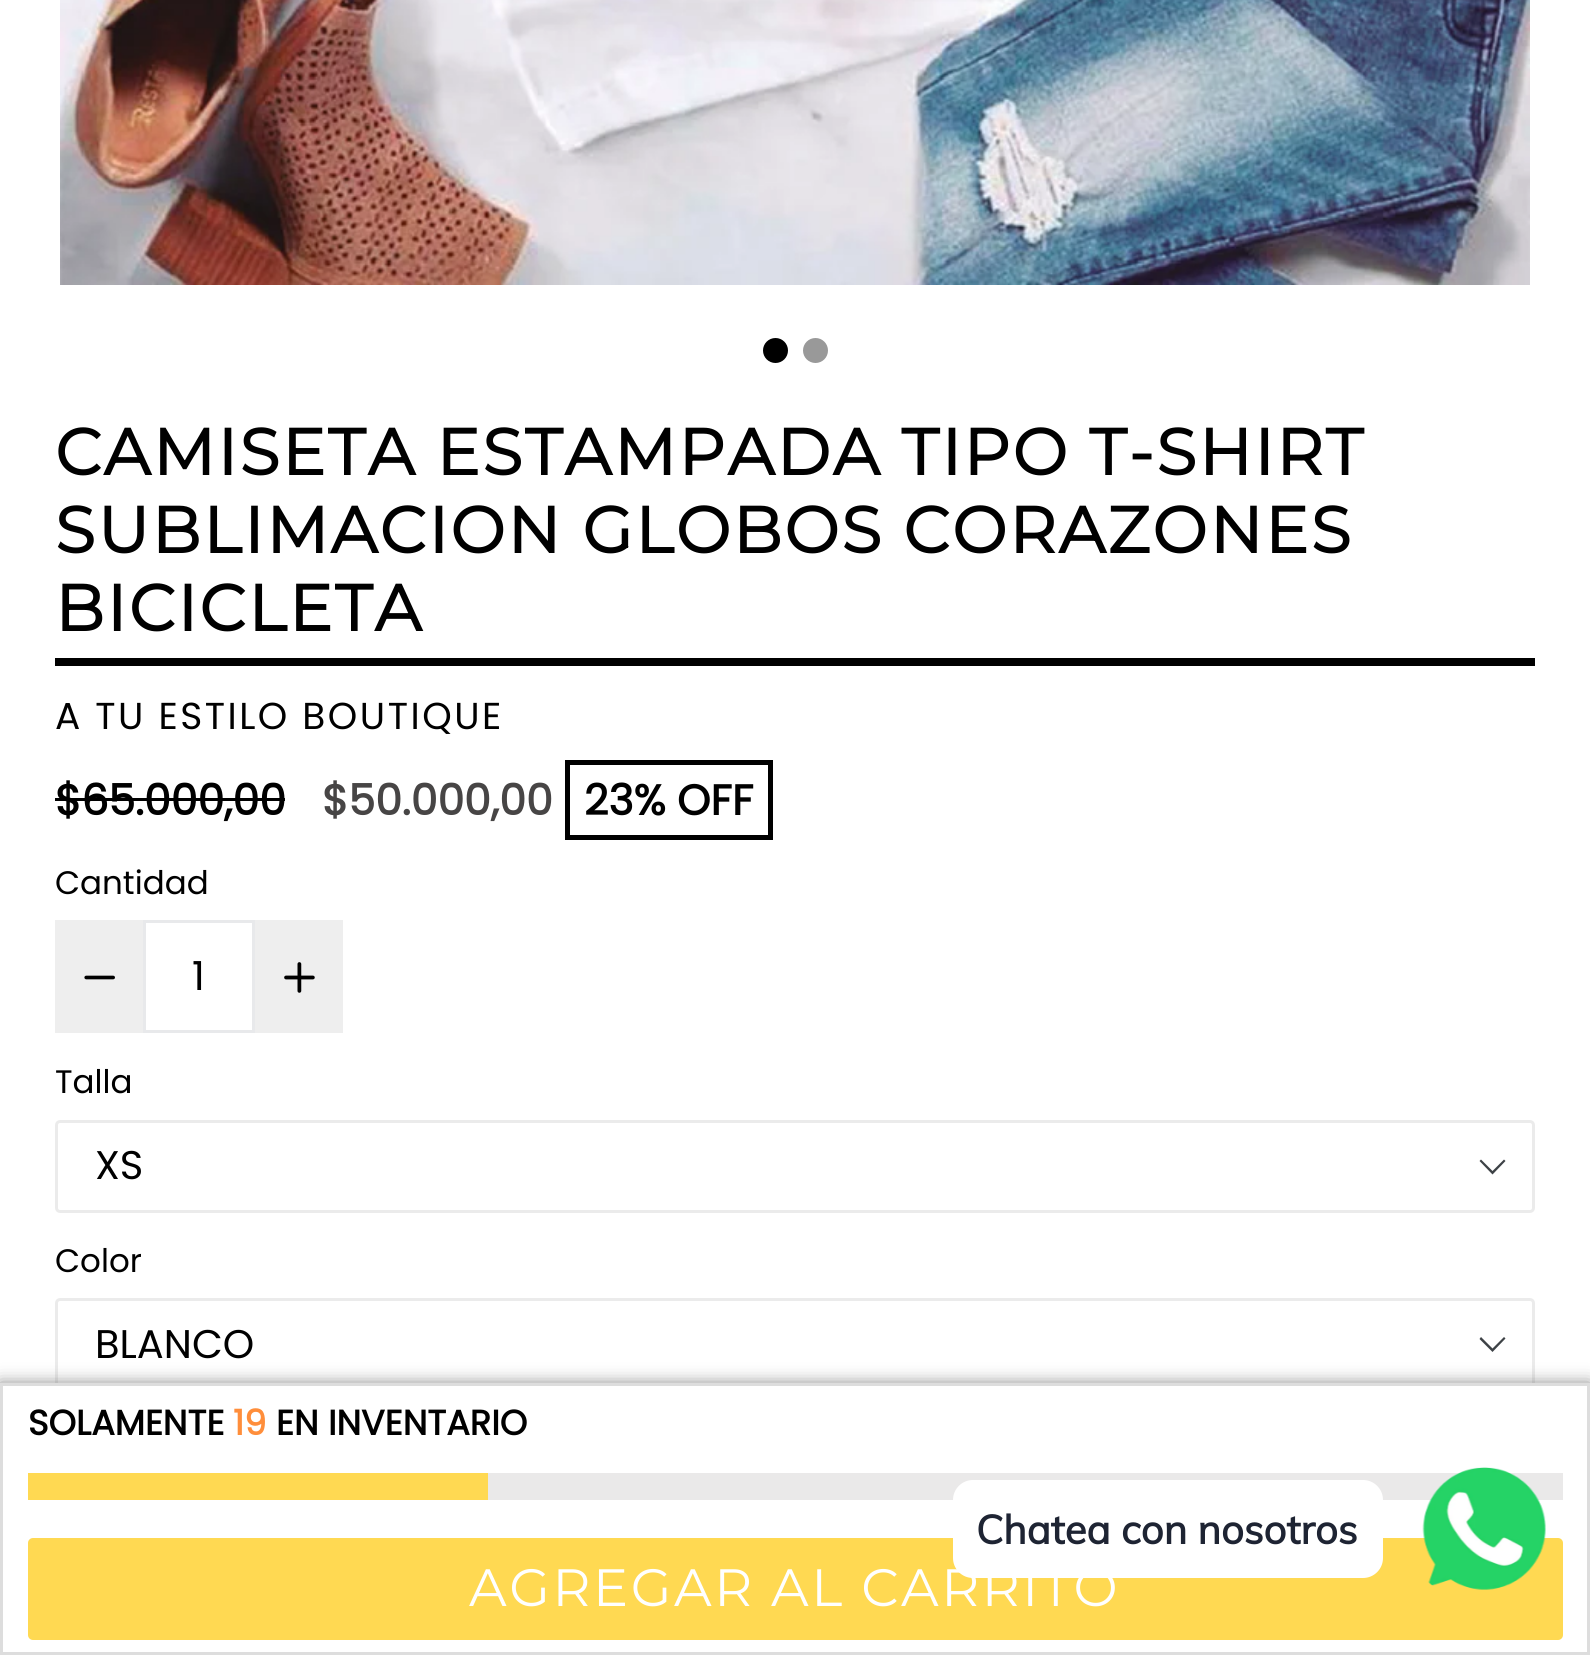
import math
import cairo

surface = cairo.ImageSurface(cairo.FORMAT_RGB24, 1590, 1655)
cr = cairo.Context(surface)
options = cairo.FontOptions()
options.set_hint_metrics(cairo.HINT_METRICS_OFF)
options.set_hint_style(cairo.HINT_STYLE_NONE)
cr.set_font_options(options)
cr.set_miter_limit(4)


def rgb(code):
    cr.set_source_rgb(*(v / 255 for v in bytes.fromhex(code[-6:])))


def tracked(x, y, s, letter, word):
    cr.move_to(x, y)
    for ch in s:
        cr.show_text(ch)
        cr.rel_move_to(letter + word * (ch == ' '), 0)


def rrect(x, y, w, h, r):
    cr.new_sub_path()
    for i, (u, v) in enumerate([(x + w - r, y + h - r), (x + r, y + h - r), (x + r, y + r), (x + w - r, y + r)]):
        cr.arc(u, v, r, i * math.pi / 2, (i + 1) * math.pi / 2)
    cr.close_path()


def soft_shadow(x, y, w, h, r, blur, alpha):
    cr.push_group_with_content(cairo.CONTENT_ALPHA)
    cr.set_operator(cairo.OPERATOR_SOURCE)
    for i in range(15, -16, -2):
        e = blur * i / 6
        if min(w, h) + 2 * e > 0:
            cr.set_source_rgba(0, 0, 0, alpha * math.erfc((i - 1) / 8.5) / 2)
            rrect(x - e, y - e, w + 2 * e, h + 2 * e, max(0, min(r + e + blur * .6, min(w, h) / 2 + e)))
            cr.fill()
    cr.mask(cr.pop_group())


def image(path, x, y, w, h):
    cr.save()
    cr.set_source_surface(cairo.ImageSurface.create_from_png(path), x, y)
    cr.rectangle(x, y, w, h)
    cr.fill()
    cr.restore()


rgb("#ffffff")
cr.paint()
image("img/1.png", 60, 0, 1470, 285)
rgb("#000000")
cr.arc(775.5, 350.5, 12.5, 0, 2 * math.pi)
cr.fill()
rgb("#999999")
cr.arc(815.5, 350.5, 12.5, 0, 2 * math.pi)
cr.fill()
rgb("#000000")
cr.rectangle(55, 658, 1480, 8)
cr.fill()
cr.rectangle(55, 798, 230, 3)
cr.fill()
cr.rectangle(567.5, 762.5, 203, 75)
cr.set_line_width(5)
cr.stroke()
rgb("#eeeeee")
cr.rectangle(55, 920, 88, 113)
cr.fill()
image("img/2.png", 84, 975, 31, 5)
cr.rectangle(144.5, 921.5, 109, 110)
rgb("#e8e9eb")
cr.set_line_width(3)
cr.stroke()
rgb("#eeeeee")
cr.rectangle(255, 920, 88, 113)
cr.fill()
image("img/3.png", 284, 962, 31, 31)
rgb("#3d4246")
cr.new_path()
cr.move_to(1492.5, 1174.5)
cr.line_to(1479.5, 1161)
cr.line_to(1481, 1159.5)
cr.line_to(1492.5, 1171)
cr.line_to(1504, 1159.5)
cr.line_to(1505.5, 1161)
cr.close_path()
cr.fill()
rrect(56.5, 1121.5, 1477, 90, 3.5)
rgb("#ebebeb")
cr.stroke()
rgb("#3d4246")
cr.new_path()
cr.move_to(1492.5, 1352)
cr.line_to(1479.5, 1339)
cr.line_to(1481, 1337)
cr.line_to(1492.5, 1348.5)
cr.line_to(1504, 1337)
cr.line_to(1505.5, 1338.5)
cr.close_path()
cr.fill()
rrect(56.5, 1299.5, 1477, 89, 3.5)
rgb("#ebebeb")
cr.stroke()
rgb("#717171")
soft_shadow(0, 1385, 1590, 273, 0, 9, 1)
rgb("#ffffff")
cr.rectangle(1.5, 1384.5, 1587, 269)
cr.fill_preserve()
rgb("#dddddd")
cr.stroke()
rgb("#eae9e9")
cr.rectangle(488, 1473, 1075, 27)
cr.fill()
rgb("#ffd952")
cr.rectangle(28, 1473, 460, 27)
cr.fill()
rrect(28, 1538, 1535, 102, 5)
cr.fill()
image("img/4.png", 1422, 1467, 124, 123)
rgb("#ffffff")
rrect(953, 1480, 430, 98, 20)
cr.fill()
cr.select_font_face("Montserrat", cairo.FONT_SLANT_NORMAL, cairo.FONT_WEIGHT_BOLD)
cr.set_font_size(65)
rgb("#000000")
for x, y, s in [
    (55, 475, "CAMISETA ESTAMPADA TIPO T-SHIRT"),
    (55, 553, "SUBLIMACION GLOBOS CORAZONES"),
    (55, 631, "BICICLETA"),
]:
    tracked(x, y, s, 2.5, 0)
cr.select_font_face("Poppins")
cr.set_font_size(37.5)
tracked(55, 729, "A TU ESTILO BOUTIQUE", 2.5, 0)
cr.select_font_face("Poppins", cairo.FONT_SLANT_NORMAL, cairo.FONT_WEIGHT_BOLD)
cr.set_font_size(42.5)
cr.move_to(55, 815)
cr.show_text("$65.000,00")
rgb("#474545")
cr.move_to(322, 815)
cr.show_text("$50.000,00")
rgb("#000000")
cr.move_to(584, 815)
cr.show_text("23% OFF")
cr.select_font_face("Poppins")
cr.set_font_size(32.5)
cr.move_to(55, 894)
cr.show_text("Cantidad")
cr.set_font_size(40)
cr.move_to(192, 990)
cr.show_text("1")
cr.set_font_size(32.5)
cr.move_to(55, 1093)
cr.show_text("Talla")
cr.set_font_size(40)
cr.move_to(95, 1179)
cr.show_text("XS")
cr.set_font_size(32.5)
cr.move_to(55, 1272)
cr.show_text("Color")
cr.set_font_size(40)
cr.move_to(95, 1358)
cr.show_text("BLANCO")
cr.select_font_face("Poppins", cairo.FONT_SLANT_NORMAL, cairo.FONT_WEIGHT_BOLD)
cr.set_font_size(35)
cr.move_to(28, 1435)
cr.show_text("SOLAMENTE")
rgb("#ff8e3b")
cr.move_to(233, 1435)
cr.show_text("19")
rgb("#000000")
cr.move_to(276, 1435)
cr.show_text("EN INVENTARIO")
cr.select_font_face("Montserrat Thin")
cr.set_font_size(52.5)
rgb("#ffffff")
tracked(469, 1606, "AGREGAR AL CARRITO", 2.6, 0)
cr.select_font_face("Muli", cairo.FONT_SLANT_NORMAL, cairo.FONT_WEIGHT_BOLD)
cr.set_font_size(40)
rgb("#1e2433")
cr.move_to(976, 1544)
cr.show_text("Chatea con nosotros")
surface.write_to_png("page.png")
